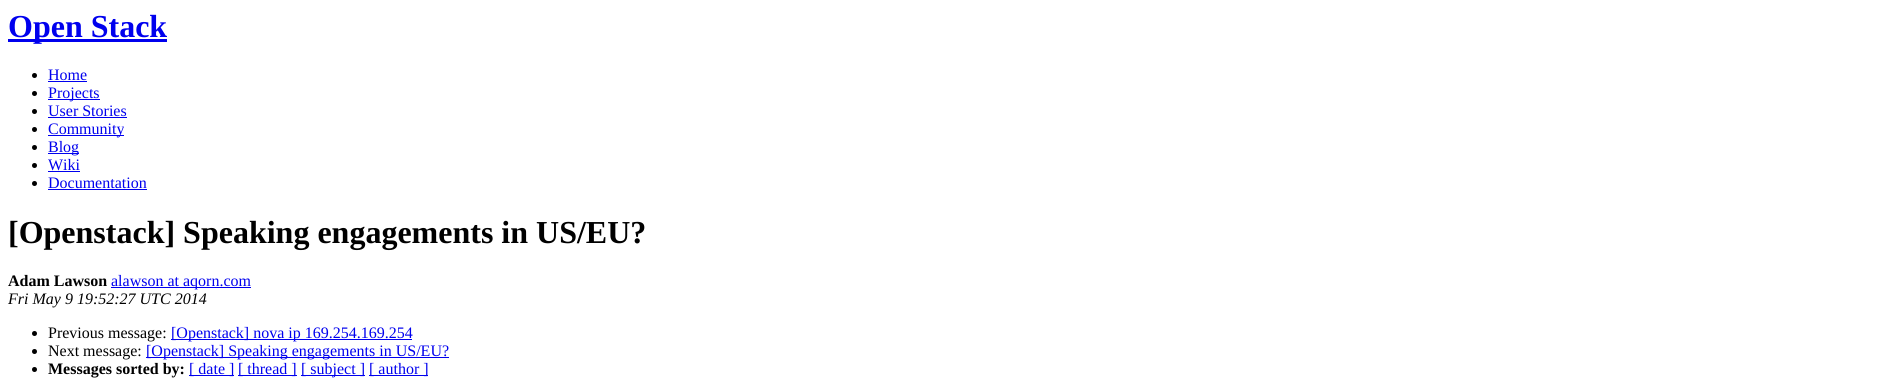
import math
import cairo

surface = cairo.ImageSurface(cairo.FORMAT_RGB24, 1890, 387)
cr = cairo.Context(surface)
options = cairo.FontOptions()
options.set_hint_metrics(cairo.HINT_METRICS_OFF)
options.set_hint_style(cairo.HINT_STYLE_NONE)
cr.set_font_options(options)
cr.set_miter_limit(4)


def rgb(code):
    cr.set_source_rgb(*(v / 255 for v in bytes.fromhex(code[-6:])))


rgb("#ffffff")
cr.paint()
rgb("#0000ee")
cr.rectangle(8, 39, 159, 3)
cr.fill()
rgb("#000000")
cr.arc(34.5, 75.5, 2.5, 0, 2 * math.pi)
cr.fill()
rgb("#0000ee")
cr.rectangle(48, 81, 39, 1)
cr.fill()
rgb("#000000")
cr.arc(34.5, 93.5, 2.5, 0, 2 * math.pi)
cr.fill()
rgb("#0000ee")
cr.rectangle(48, 99, 52, 1)
cr.fill()
rgb("#000000")
cr.arc(34.5, 111.5, 2.5, 0, 2 * math.pi)
cr.fill()
rgb("#0000ee")
cr.rectangle(48, 117, 79, 1)
cr.fill()
rgb("#000000")
cr.arc(34.5, 129.5, 2.5, 0, 2 * math.pi)
cr.fill()
rgb("#0000ee")
cr.rectangle(48, 135, 76, 1)
cr.fill()
rgb("#000000")
cr.arc(34.5, 147.5, 2.5, 0, 2 * math.pi)
cr.fill()
rgb("#0000ee")
cr.rectangle(48, 153, 31, 1)
cr.fill()
rgb("#000000")
cr.arc(34.5, 165.5, 2.5, 0, 2 * math.pi)
cr.fill()
rgb("#0000ee")
cr.rectangle(48, 171, 32, 1)
cr.fill()
rgb("#000000")
cr.arc(34.5, 183.5, 2.5, 0, 2 * math.pi)
cr.fill()
rgb("#0000ee")
cr.rectangle(48, 189, 99, 1)
cr.fill()
cr.rectangle(111, 287, 140, 1)
cr.fill()
rgb("#000000")
cr.arc(34.5, 333.5, 2.5, 0, 2 * math.pi)
cr.fill()
rgb("#0000ee")
cr.rectangle(171, 339, 241, 1)
cr.fill()
rgb("#000000")
cr.arc(34.5, 351.5, 2.5, 0, 2 * math.pi)
cr.fill()
rgb("#0000ee")
cr.rectangle(146, 357, 303, 1)
cr.fill()
rgb("#000000")
cr.arc(34.5, 369.5, 2.5, 0, 2 * math.pi)
cr.fill()
for x, y, w, h, color in [
    (189, 375, 45, 1, "#0000ee"),
    (238, 375, 59, 1, "#0000ee"),
    (301, 375, 64, 1, "#0000ee"),
    (369, 375, 59, 1, "#0000ee"),
]:
    rgb(color)
    cr.rectangle(x, y, w, h)
    cr.fill()
cr.select_font_face("Liberation Serif", cairo.FONT_SLANT_NORMAL, cairo.FONT_WEIGHT_BOLD)
cr.set_font_size(32)
cr.move_to(8, 37)
cr.show_text("Open Stack")
cr.select_font_face("Liberation Serif")
cr.set_font_size(16)
for x, y, s in [
    (48, 80, "Home"),
    (48, 98, "Projects"),
    (48, 116, "User Stories"),
    (48, 134, "Community"),
    (48, 152, "Blog"),
    (48, 170, "Wiki"),
    (48, 188, "Documentation"),
]:
    cr.move_to(x, y)
    cr.show_text(s)
cr.select_font_face("Liberation Serif", cairo.FONT_SLANT_NORMAL, cairo.FONT_WEIGHT_BOLD)
cr.set_font_size(32)
rgb("#000000")
cr.move_to(8, 243)
cr.show_text("[Openstack] Speaking engagements in US/EU?")
cr.set_font_size(16)
cr.move_to(8, 286)
cr.show_text("Adam Lawson")
cr.select_font_face("Liberation Serif")
rgb("#0000ee")
cr.move_to(111, 286)
cr.show_text("alawson at aqorn.com")
cr.select_font_face("Liberation Serif", cairo.FONT_SLANT_ITALIC)
rgb("#000000")
cr.move_to(8, 304)
cr.show_text("Fri May 9 19:52:27 UTC 2014")
cr.select_font_face("Liberation Serif")
cr.move_to(48, 338)
cr.show_text("Previous message:")
rgb("#0000ee")
cr.move_to(171, 338)
cr.show_text("[Openstack] nova ip 169.254.169.254")
rgb("#000000")
cr.move_to(48, 356)
cr.show_text("Next message:")
rgb("#0000ee")
cr.move_to(146, 356)
cr.show_text("[Openstack] Speaking engagements in US/EU?")
cr.select_font_face("Liberation Serif", cairo.FONT_SLANT_NORMAL, cairo.FONT_WEIGHT_BOLD)
rgb("#000000")
cr.move_to(48, 374)
cr.show_text("Messages sorted by:")
cr.select_font_face("Liberation Serif")
rgb("#0000ee")
for x, y, s in [
    (189, 374, "[ date ]"),
    (238, 374, "[ thread ]"),
    (301, 374, "[ subject ]"),
    (369, 374, "[ author ]"),
]:
    cr.move_to(x, y)
    cr.show_text(s)
surface.write_to_png("page.png")
